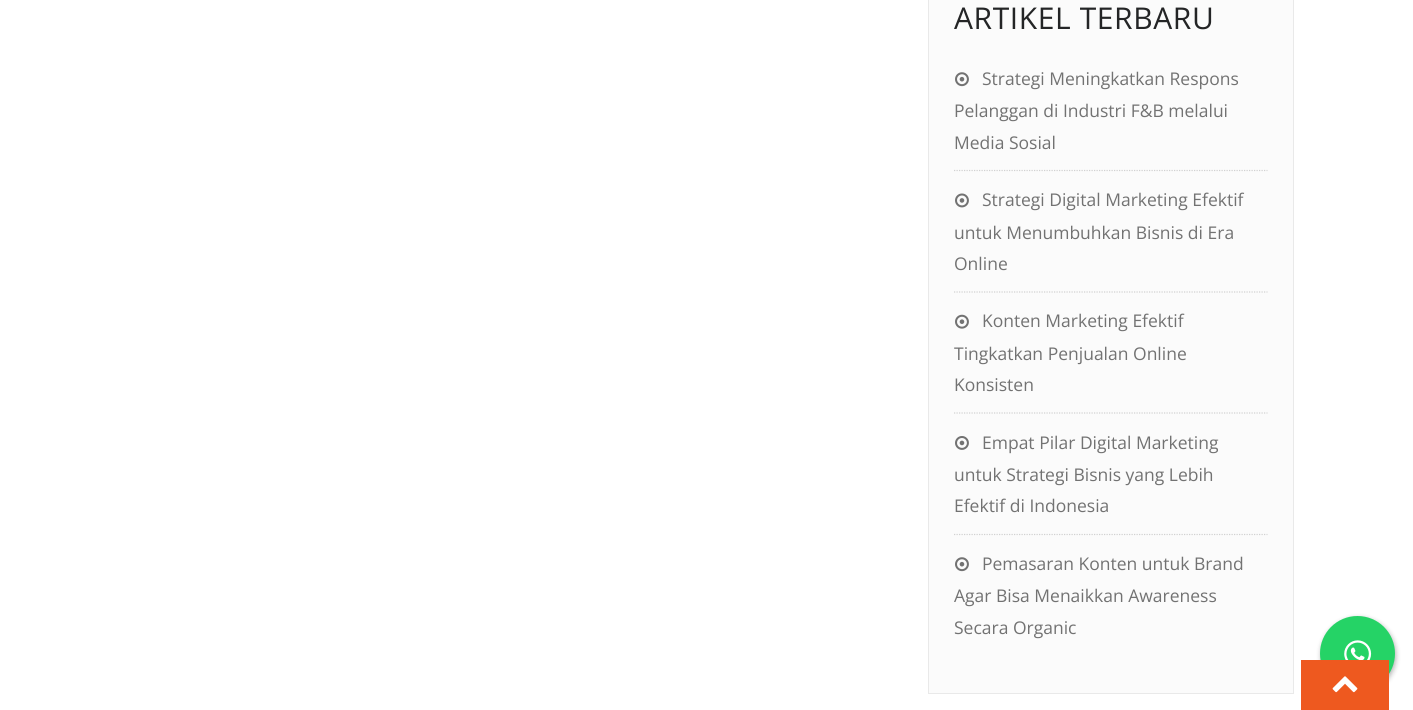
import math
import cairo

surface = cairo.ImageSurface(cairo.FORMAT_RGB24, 1413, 710)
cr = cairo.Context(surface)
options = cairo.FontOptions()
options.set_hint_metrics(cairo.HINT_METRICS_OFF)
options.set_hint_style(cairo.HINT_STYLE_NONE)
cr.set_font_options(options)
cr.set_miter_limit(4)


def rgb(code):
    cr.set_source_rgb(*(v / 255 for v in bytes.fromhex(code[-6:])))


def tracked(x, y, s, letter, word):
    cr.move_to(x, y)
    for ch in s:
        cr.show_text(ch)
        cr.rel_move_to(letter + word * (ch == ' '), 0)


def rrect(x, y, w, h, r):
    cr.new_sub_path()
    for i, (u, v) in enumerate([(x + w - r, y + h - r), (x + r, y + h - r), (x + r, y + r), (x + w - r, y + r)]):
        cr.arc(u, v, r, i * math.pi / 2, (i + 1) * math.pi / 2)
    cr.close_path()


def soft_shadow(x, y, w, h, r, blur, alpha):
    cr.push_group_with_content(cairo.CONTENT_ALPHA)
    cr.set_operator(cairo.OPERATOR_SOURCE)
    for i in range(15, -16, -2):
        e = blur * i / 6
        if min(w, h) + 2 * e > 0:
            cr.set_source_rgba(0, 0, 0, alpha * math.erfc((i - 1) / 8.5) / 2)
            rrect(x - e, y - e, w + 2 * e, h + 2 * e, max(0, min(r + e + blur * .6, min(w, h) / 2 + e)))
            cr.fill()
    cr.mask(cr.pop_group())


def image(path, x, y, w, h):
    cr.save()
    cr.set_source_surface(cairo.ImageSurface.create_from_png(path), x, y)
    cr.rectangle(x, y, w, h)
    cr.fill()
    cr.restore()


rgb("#ffffff")
cr.paint()
rgb("#fbfbfb")
cr.rectangle(928.5, -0.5, 365, 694)
cr.fill_preserve()
rgb("#e9e9e9")
cr.set_line_width(1)
cr.stroke()
cr.new_path()
cr.move_to(954, 170.5)
cr.line_to(1267.5, 170.5)
rgb("#d1d1d1")
cr.set_line_width(1.2)
cr.set_dash([1.25, 1.25])
cr.stroke()
image("img/1.png", 955, 72, 14, 15)
cr.new_path()
cr.move_to(954, 292)
cr.line_to(1267.5, 292)
cr.stroke()
image("img/2.png", 955, 193, 14, 15)
cr.new_path()
cr.move_to(954, 413)
cr.line_to(1267.5, 413)
cr.stroke()
image("img/3.png", 955, 314, 14, 15)
cr.new_path()
cr.move_to(954, 534.5)
cr.line_to(1267.5, 534.5)
cr.stroke()
image("img/4.png", 955, 436, 14, 14)
image("img/1.png", 955, 557, 14, 15)
rgb("#000000")
soft_shadow(1321, 618, 75, 75, 37.5, 2.5, 0.3)
rgb("#25d366")
cr.arc(1357.5, 653.5, 37.5, 0, 2 * math.pi)
cr.fill()
image("img/5.png", 1344, 640, 28, 20)
rgb("#ee591f")
cr.rectangle(1301, 660, 88, 50)
cr.fill()
image("img/6.png", 1332, 676, 26, 17)
cr.select_font_face("Open Sans")
cr.set_font_size(30)
rgb("#242526")
tracked(954, 29, "ARTIKEL TERBARU", 0.6, 0)
cr.set_font_size(17.5)
rgb("#727272")
for x, y, s in [
    (982, 85, "Strategi Meningkatkan Respons"),
    (954, 117, "Pelanggan di Industri F&B melalui"),
    (954, 149, "Media Sosial"),
    (982, 206, "Strategi Digital Marketing Efektif"),
    (954, 239, "untuk Menumbuhkan Bisnis di Era"),
    (954, 270, "Online"),
    (982, 327, "Konten Marketing Efektif"),
    (954, 360, "Tingkatkan Penjualan Online"),
    (954, 391, "Konsisten"),
    (982, 449, "Empat Pilar Digital Marketing"),
    (954, 481, "untuk Strategi Bisnis yang Lebih"),
    (954, 512, "Efektif di Indonesia"),
    (982, 570, "Pemasaran Konten untuk Brand"),
    (954, 602, "Agar Bisa Menaikkan Awareness"),
    (954, 634, "Secara Organic"),
]:
    cr.move_to(x, y)
    cr.show_text(s)
surface.write_to_png("page.png")
